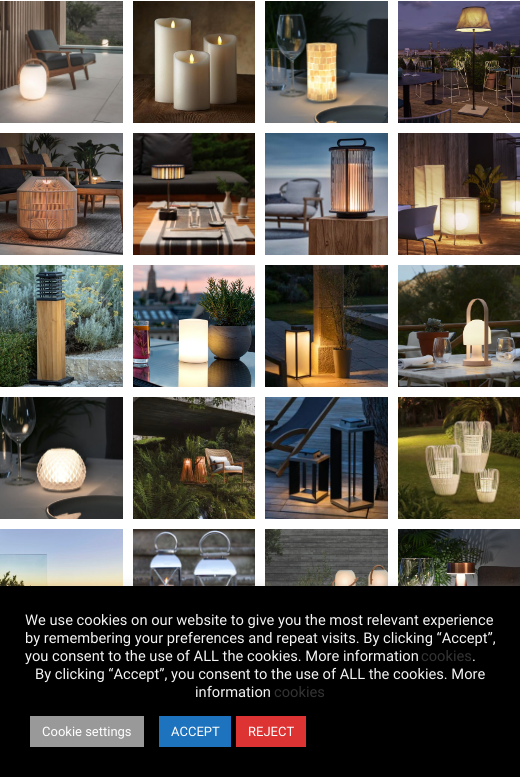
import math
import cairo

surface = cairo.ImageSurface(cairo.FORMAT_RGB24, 520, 777)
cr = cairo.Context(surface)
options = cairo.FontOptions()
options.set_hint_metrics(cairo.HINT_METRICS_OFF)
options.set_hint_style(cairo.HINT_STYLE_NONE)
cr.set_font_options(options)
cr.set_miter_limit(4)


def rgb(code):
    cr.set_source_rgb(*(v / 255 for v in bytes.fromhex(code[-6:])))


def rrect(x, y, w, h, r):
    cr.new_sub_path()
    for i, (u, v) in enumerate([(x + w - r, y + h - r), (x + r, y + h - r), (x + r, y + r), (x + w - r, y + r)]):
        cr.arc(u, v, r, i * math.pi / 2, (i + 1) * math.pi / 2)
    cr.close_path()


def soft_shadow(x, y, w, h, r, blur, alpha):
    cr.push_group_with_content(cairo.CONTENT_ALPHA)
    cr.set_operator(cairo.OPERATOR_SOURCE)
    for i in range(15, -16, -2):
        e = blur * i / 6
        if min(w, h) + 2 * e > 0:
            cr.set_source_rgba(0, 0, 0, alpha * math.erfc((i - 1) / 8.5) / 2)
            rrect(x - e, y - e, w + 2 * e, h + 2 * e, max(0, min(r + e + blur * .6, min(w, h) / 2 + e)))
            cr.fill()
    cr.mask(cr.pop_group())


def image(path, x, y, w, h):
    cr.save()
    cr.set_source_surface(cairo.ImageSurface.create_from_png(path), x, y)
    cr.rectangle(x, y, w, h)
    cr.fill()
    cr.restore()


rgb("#ffffff")
cr.paint()
image("img/1.png", 0, 1, 123, 122)
image("img/2.png", 133, 1, 122, 122)
image("img/3.png", 265, 1, 123, 122)
image("img/4.png", 398, 1, 122, 122)
image("img/5.png", 0, 133, 123, 122)
image("img/6.png", 133, 133, 122, 122)
image("img/7.png", 265, 133, 123, 122)
image("img/8.png", 398, 133, 122, 122)
image("img/9.png", 0, 265, 123, 122)
image("img/10.png", 133, 265, 122, 122)
image("img/11.png", 265, 265, 123, 122)
image("img/12.png", 398, 265, 122, 122)
image("img/13.png", 0, 397, 123, 122)
image("img/14.png", 133, 397, 122, 122)
image("img/15.png", 265, 397, 123, 122)
image("img/16.png", 398, 397, 122, 122)
image("img/17.png", 0, 529, 123, 57)
image("img/18.png", 133, 529, 122, 57)
image("img/19.png", 265, 529, 123, 57)
image("img/20.png", 398, 529, 122, 57)
rgb("#acabab")
soft_shadow(0, 585, 520, 191, 0, 5, 0.3)
for x, y, w, h, color in [
    (0, 586, 520, 191, "#000000"),
    (30, 716, 114, 31, "#999999"),
    (159, 716, 72, 31, "#1e73be"),
    (236, 716, 70, 31, "#dd3333"),
]:
    rgb(color)
    cr.rectangle(x, y, w, h)
    cr.fill()
cr.select_font_face("Roboto")
cr.set_font_size(14.7)
rgb("#f4f4f4")
for x, y, s in [
    (25, 625, "We use cookies on our website to give you the most relevant experience"),
    (25, 643, "by remembering your preferences and repeat visits. By clicking “Accept”,"),
    (25, 661, "you consent to the use of ALL the cookies. More information"),
]:
    cr.move_to(x, y)
    cr.show_text(s)
rgb("#333333")
cr.move_to(421, 661)
cr.show_text("cookies")
rgb("#f4f4f4")
for x, y, s in [
    (472, 661, "."),
    (35, 679, "By clicking “Accept”, you consent to the use of ALL the cookies. More"),
    (195, 697, "information"),
]:
    cr.move_to(x, y)
    cr.show_text(s)
rgb("#333333")
cr.move_to(274, 697)
cr.show_text("cookies")
cr.set_font_size(13)
rgb("#ffffff")
for x, y, s in [
    (42, 736, "Cookie settings"),
    (171, 736, "ACCEPT"),
    (248, 736, "REJECT"),
]:
    cr.move_to(x, y)
    cr.show_text(s)
surface.write_to_png("page.png")
